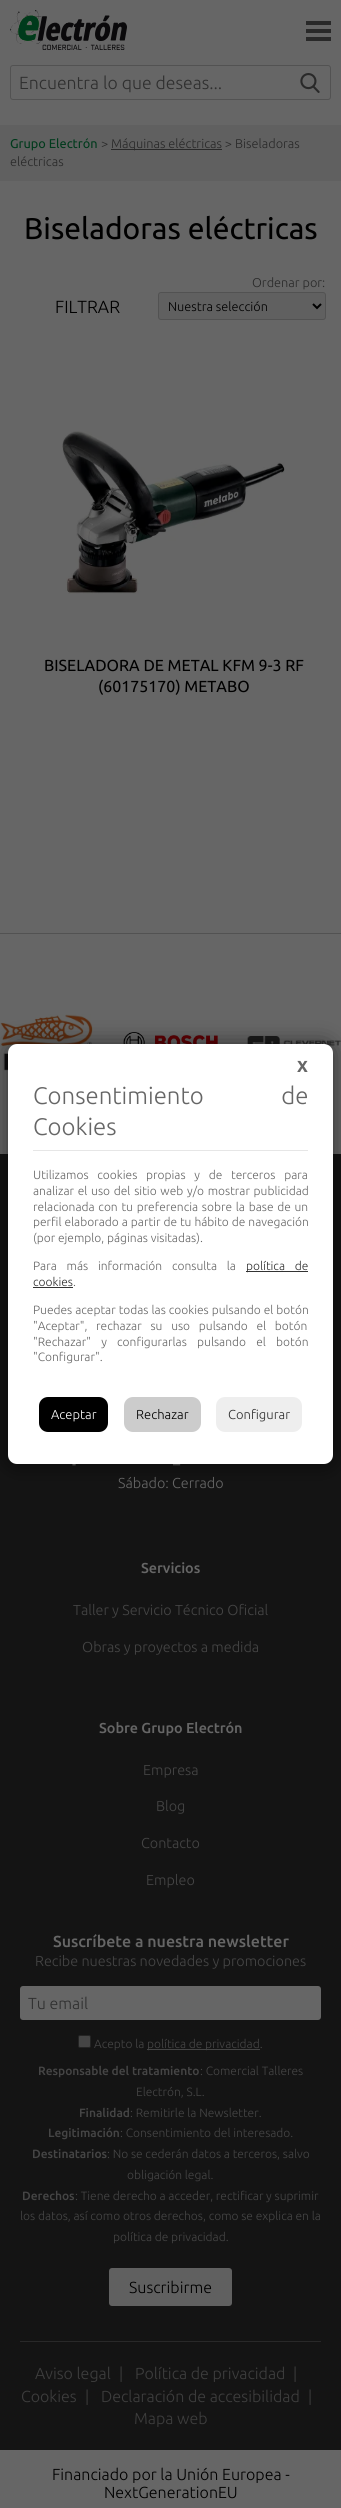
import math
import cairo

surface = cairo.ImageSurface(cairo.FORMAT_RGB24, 341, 2508)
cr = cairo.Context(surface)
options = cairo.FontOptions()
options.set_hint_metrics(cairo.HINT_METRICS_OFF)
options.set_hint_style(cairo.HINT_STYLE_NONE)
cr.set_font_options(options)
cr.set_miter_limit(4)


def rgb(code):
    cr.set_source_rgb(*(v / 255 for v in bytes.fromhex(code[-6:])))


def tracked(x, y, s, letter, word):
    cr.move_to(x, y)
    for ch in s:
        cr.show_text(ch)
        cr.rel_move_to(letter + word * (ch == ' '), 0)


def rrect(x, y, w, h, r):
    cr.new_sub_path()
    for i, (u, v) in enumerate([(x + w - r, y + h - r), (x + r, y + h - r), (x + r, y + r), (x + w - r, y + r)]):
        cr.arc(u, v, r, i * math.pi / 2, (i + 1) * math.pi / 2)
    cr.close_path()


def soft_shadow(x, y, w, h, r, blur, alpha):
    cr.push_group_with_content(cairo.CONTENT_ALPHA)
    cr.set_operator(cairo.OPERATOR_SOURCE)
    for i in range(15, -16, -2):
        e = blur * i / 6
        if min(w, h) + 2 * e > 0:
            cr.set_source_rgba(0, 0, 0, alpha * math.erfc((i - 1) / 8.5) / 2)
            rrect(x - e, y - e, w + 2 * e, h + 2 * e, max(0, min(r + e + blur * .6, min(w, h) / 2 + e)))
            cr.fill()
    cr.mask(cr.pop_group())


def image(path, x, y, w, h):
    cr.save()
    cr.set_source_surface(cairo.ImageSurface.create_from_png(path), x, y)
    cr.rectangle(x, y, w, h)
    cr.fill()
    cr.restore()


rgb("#666666")
cr.paint()
image("img/1.png", 10, 10, 117, 40)
for x, y, w, h, color in [
    (306, 21, 25, 4, "#292929"),
    (306, 37, 25, 4, "#292929"),
    (306, 29, 25, 4, "#292929"),
]:
    rgb(color)
    cr.rectangle(x, y, w, h)
    cr.fill()
rrect(10.5, 65.5, 320, 34, 2.5)
rgb("#525252")
cr.set_line_width(1)
cr.stroke()
image("img/2.png", 300, 73, 20, 20)
rgb("#606060")
cr.rectangle(0, 125, 341, 56)
cr.fill()
rgb("#292929")
cr.rectangle(111, 149, 111, 1)
cr.fill()
rgb("#606060")
rrect(158.5, 292.5, 167, 27, 2.5)
cr.fill_preserve()
rgb("#525252")
cr.stroke()
cr.new_path()
cr.move_to(313, 304)
cr.line_to(317, 308)
cr.line_to(321, 304)
rgb("#000000")
cr.set_line_width(2)
cr.stroke()
image("img/3.png", 62, 431, 223, 163)
rgb("#525252")
cr.rectangle(0, 933, 341, 1)
cr.fill()
image("img/4.png", 0, 1014, 93, 57)
image("img/5.png", 123, 1032, 95, 12)
image("img/6.png", 247, 1036, 94, 14)
rgb("#141414")
cr.rectangle(0, 1154, 341, 1296)
cr.fill()
rgb("#000000")
soft_shadow(8, 1044, 325, 420, 9, 11, 0.54)
rgb("#ffffff")
rrect(8, 1044, 325, 420, 9)
cr.fill()
for x, y, w, h, color in [
    (33, 1150, 275, 1, "#e6e6e6"),
    (246, 1271, 62, 1, "#333333"),
    (33, 1287, 40, 1, "#333333"),
]:
    rgb(color)
    cr.rectangle(x, y, w, h)
    cr.fill()
rgb("#000000")
rrect(39, 1397, 69, 35, 9)
cr.fill()
rgb("#cccccc")
rrect(124, 1397, 77, 35, 9)
cr.fill()
rgb("#eeeeee")
rrect(216, 1397, 86, 35, 9)
cr.fill()
rgb("#666666")
rrect(20, 1986, 301, 34, 3)
cr.fill()
rgb("#454545")
rrect(78.5, 2035.5, 12, 12, 1.5)
cr.fill_preserve()
rgb("#242424")
cr.set_line_width(1)
cr.stroke()
rgb("#454545")
cr.rectangle(147, 2049, 113, 1)
cr.fill()
rgb("#606060")
rrect(109, 2268, 123, 38, 3)
cr.fill()
rgb("#292929")
cr.rectangle(20, 2341, 301, 1)
cr.fill()
cr.select_font_face("Ubuntu Light")
cr.set_font_size(17.6)
rgb("#2f2f2f")
cr.move_to(19, 89)
cr.show_text("Encuentra lo que deseas...")
cr.select_font_face("Ubuntu")
cr.set_font_size(12.75)
rgb("#003a1c")
cr.move_to(10, 148)
cr.show_text("Grupo Electrón")
cr.select_font_face("Ubuntu Light")
rgb("#292929")
for x, y, s in [
    (101, 148, ">"),
    (111, 148, "Máquinas eléctricas > Biseladoras"),
    (10, 166, "eléctricas"),
]:
    cr.move_to(x, y)
    cr.show_text(s)
cr.select_font_face("Ubuntu")
cr.set_font_size(30)
rgb("#000000")
cr.move_to(24, 239)
cr.show_text("Biseladoras eléctricas")
cr.select_font_face("Ubuntu Light")
cr.set_font_size(17.6)
cr.move_to(55, 313)
cr.show_text("FILTRAR")
cr.set_font_size(12.75)
rgb("#292929")
cr.move_to(252, 287)
cr.show_text("Ordenar por:")
rgb("#000000")
cr.move_to(168, 311)
cr.show_text("Nuestra selección")
cr.select_font_face("Ubuntu")
cr.set_font_size(16)
cr.move_to(44, 671)
cr.show_text("BISELADORA DE METAL KFM 9-3 RF")
cr.move_to(98, 692)
cr.show_text("(60175170) METABO")
cr.select_font_face("Ubuntu", cairo.FONT_SLANT_NORMAL, cairo.FONT_WEIGHT_BOLD)
rgb("#666666")
cr.move_to(297, 1072)
cr.show_text("X")
cr.select_font_face("Ubuntu Light")
cr.set_font_size(24)
tracked(33, 1104, "Consentimiento de", 0, 72)
cr.move_to(33, 1135)
cr.show_text("Cookies")
cr.set_font_size(12)
tracked(33, 1179, "Utilizamos cookies propias y de terceros para", 0, 6)
tracked(33, 1195, "analizar el uso del sitio web y/o mostrar publicidad", 0, 1)
tracked(33, 1211, "relacionada con tu preferencia sobre la base de un", 0, 1)
tracked(33, 1226, "perfil elaborado a partir de tu hábito de navegación", 0, 0.25)
cr.move_to(33, 1242)
cr.show_text("(por ejemplo, páginas visitadas).")
tracked(33, 1270, "Para más información consulta la", 0, 7)
rgb("#2f2f2f")
tracked(246, 1270, "política de", 0, 7)
cr.move_to(33, 1286)
cr.show_text("cookies")
rgb("#666666")
cr.move_to(73, 1286)
cr.show_text(".")
tracked(33, 1314, "Puedes aceptar todas las cookies pulsando el botón", 0, 0.25)
tracked(33, 1330, "\"Aceptar\", rechazar su uso pulsando el botón", 0, 6)
tracked(33, 1346, "\"Rechazar\" y configurarlas pulsando el botón", 0, 7.5)
cr.move_to(33, 1361)
cr.show_text("\"Configurar\".")
cr.set_font_size(13)
rgb("#ffffff")
cr.move_to(51, 1419)
cr.show_text("Aceptar")
rgb("#000000")
cr.move_to(136, 1419)
cr.show_text("Rechazar")
rgb("#2f2f2f")
cr.move_to(228, 1419)
cr.show_text("Configurar")
cr.set_font_size(14.4)
rgb("#666666")
for x, y, s in [
    (72, 1469, "-"),
    (173, 1469, "–"),
    (118, 1488, "Sábado: Cerrado"),
]:
    cr.move_to(x, y)
    cr.show_text(s)
cr.select_font_face("Ubuntu Medium")
cr.move_to(141, 1573)
cr.show_text("Servicios")
cr.select_font_face("Ubuntu Light")
rgb("#454545")
cr.move_to(73, 1615)
cr.show_text("Taller y Servicio Técnico Oficial")
cr.move_to(82, 1652)
cr.show_text("Obras y proyectos a medida")
cr.select_font_face("Ubuntu Medium")
rgb("#666666")
cr.move_to(99, 1733)
cr.show_text("Sobre Grupo Electrón")
cr.select_font_face("Ubuntu Light")
rgb("#454545")
for x, y, s in [
    (143, 1775, "Empresa"),
    (156, 1811, "Blog"),
    (141, 1848, "Contacto"),
    (146, 1885, "Empleo"),
]:
    cr.move_to(x, y)
    cr.show_text(s)
cr.select_font_face("Ubuntu Medium")
cr.set_font_size(16)
rgb("#666666")
cr.move_to(53, 1947)
cr.show_text("Suscríbete a nuestra newsletter")
cr.select_font_face("Ubuntu Light")
cr.set_font_size(14.4)
rgb("#454545")
cr.move_to(35, 1966)
cr.show_text("Recibe nuestras novedades y promociones")
cr.set_font_size(16)
rgb("#2f2f2f")
cr.move_to(28, 2009)
cr.show_text("Tu email")
cr.set_font_size(12)
rgb("#454545")
cr.move_to(94, 2048)
cr.show_text("Acepto la")
cr.move_to(147, 2048)
cr.show_text("política de privacidad.")
cr.select_font_face("Ubuntu Medium")
cr.move_to(38, 2075)
cr.show_text("Responsable del tratamiento")
cr.select_font_face("Ubuntu Light")
cr.move_to(200, 2075)
cr.show_text(": Comercial Talleres")
cr.move_to(136, 2096)
cr.show_text("Electrón, S.L.")
cr.select_font_face("Ubuntu Medium")
cr.move_to(79, 2117)
cr.show_text("Finalidad")
cr.select_font_face("Ubuntu Light")
cr.move_to(130, 2117)
cr.show_text(": Remitirle la Newsletter.")
cr.select_font_face("Ubuntu Medium")
cr.move_to(48, 2137)
cr.show_text("Legitimación")
cr.select_font_face("Ubuntu Light")
cr.move_to(120, 2137)
cr.show_text(": Consentimiento del interesado.")
cr.select_font_face("Ubuntu Medium")
cr.move_to(32, 2158)
cr.show_text("Destinatarios")
cr.select_font_face("Ubuntu Light")
cr.move_to(107, 2158)
cr.show_text(": No se cederán datos a terceros, salvo")
cr.move_to(127, 2179)
cr.show_text("obligación legal.")
cr.select_font_face("Ubuntu Medium")
cr.move_to(22, 2200)
cr.show_text("Derechos")
cr.select_font_face("Ubuntu Light")
for x, y, s in [
    (75, 2200, ": Tiene derecho a acceder, rectificar y suprimir"),
    (20, 2220, "los datos, así como otros derechos, como se explica en la"),
    (113, 2241, "política de privacidad."),
]:
    cr.move_to(x, y)
    cr.show_text(s)
cr.set_font_size(16)
rgb("#000000")
cr.move_to(129, 2293)
cr.show_text("Suscribirme")
rgb("#3d3d3d")
for x, y, s in [
    (35, 2379, "Aviso legal"),
    (119, 2379, "|"),
    (135, 2379, "Política de privacidad"),
    (293, 2379, "|"),
    (21, 2402, "Cookies"),
    (85, 2402, "|"),
    (101, 2402, "Declaración de accesibilidad"),
    (308, 2402, "|"),
    (134, 2424, "Mapa web"),
]:
    cr.move_to(x, y)
    cr.show_text(s)
rgb("#000000")
cr.move_to(52, 2480)
cr.show_text("Financiado por la Unión Europea -")
cr.move_to(104, 2498)
cr.show_text("NextGenerationEU")
surface.write_to_png("page.png")
